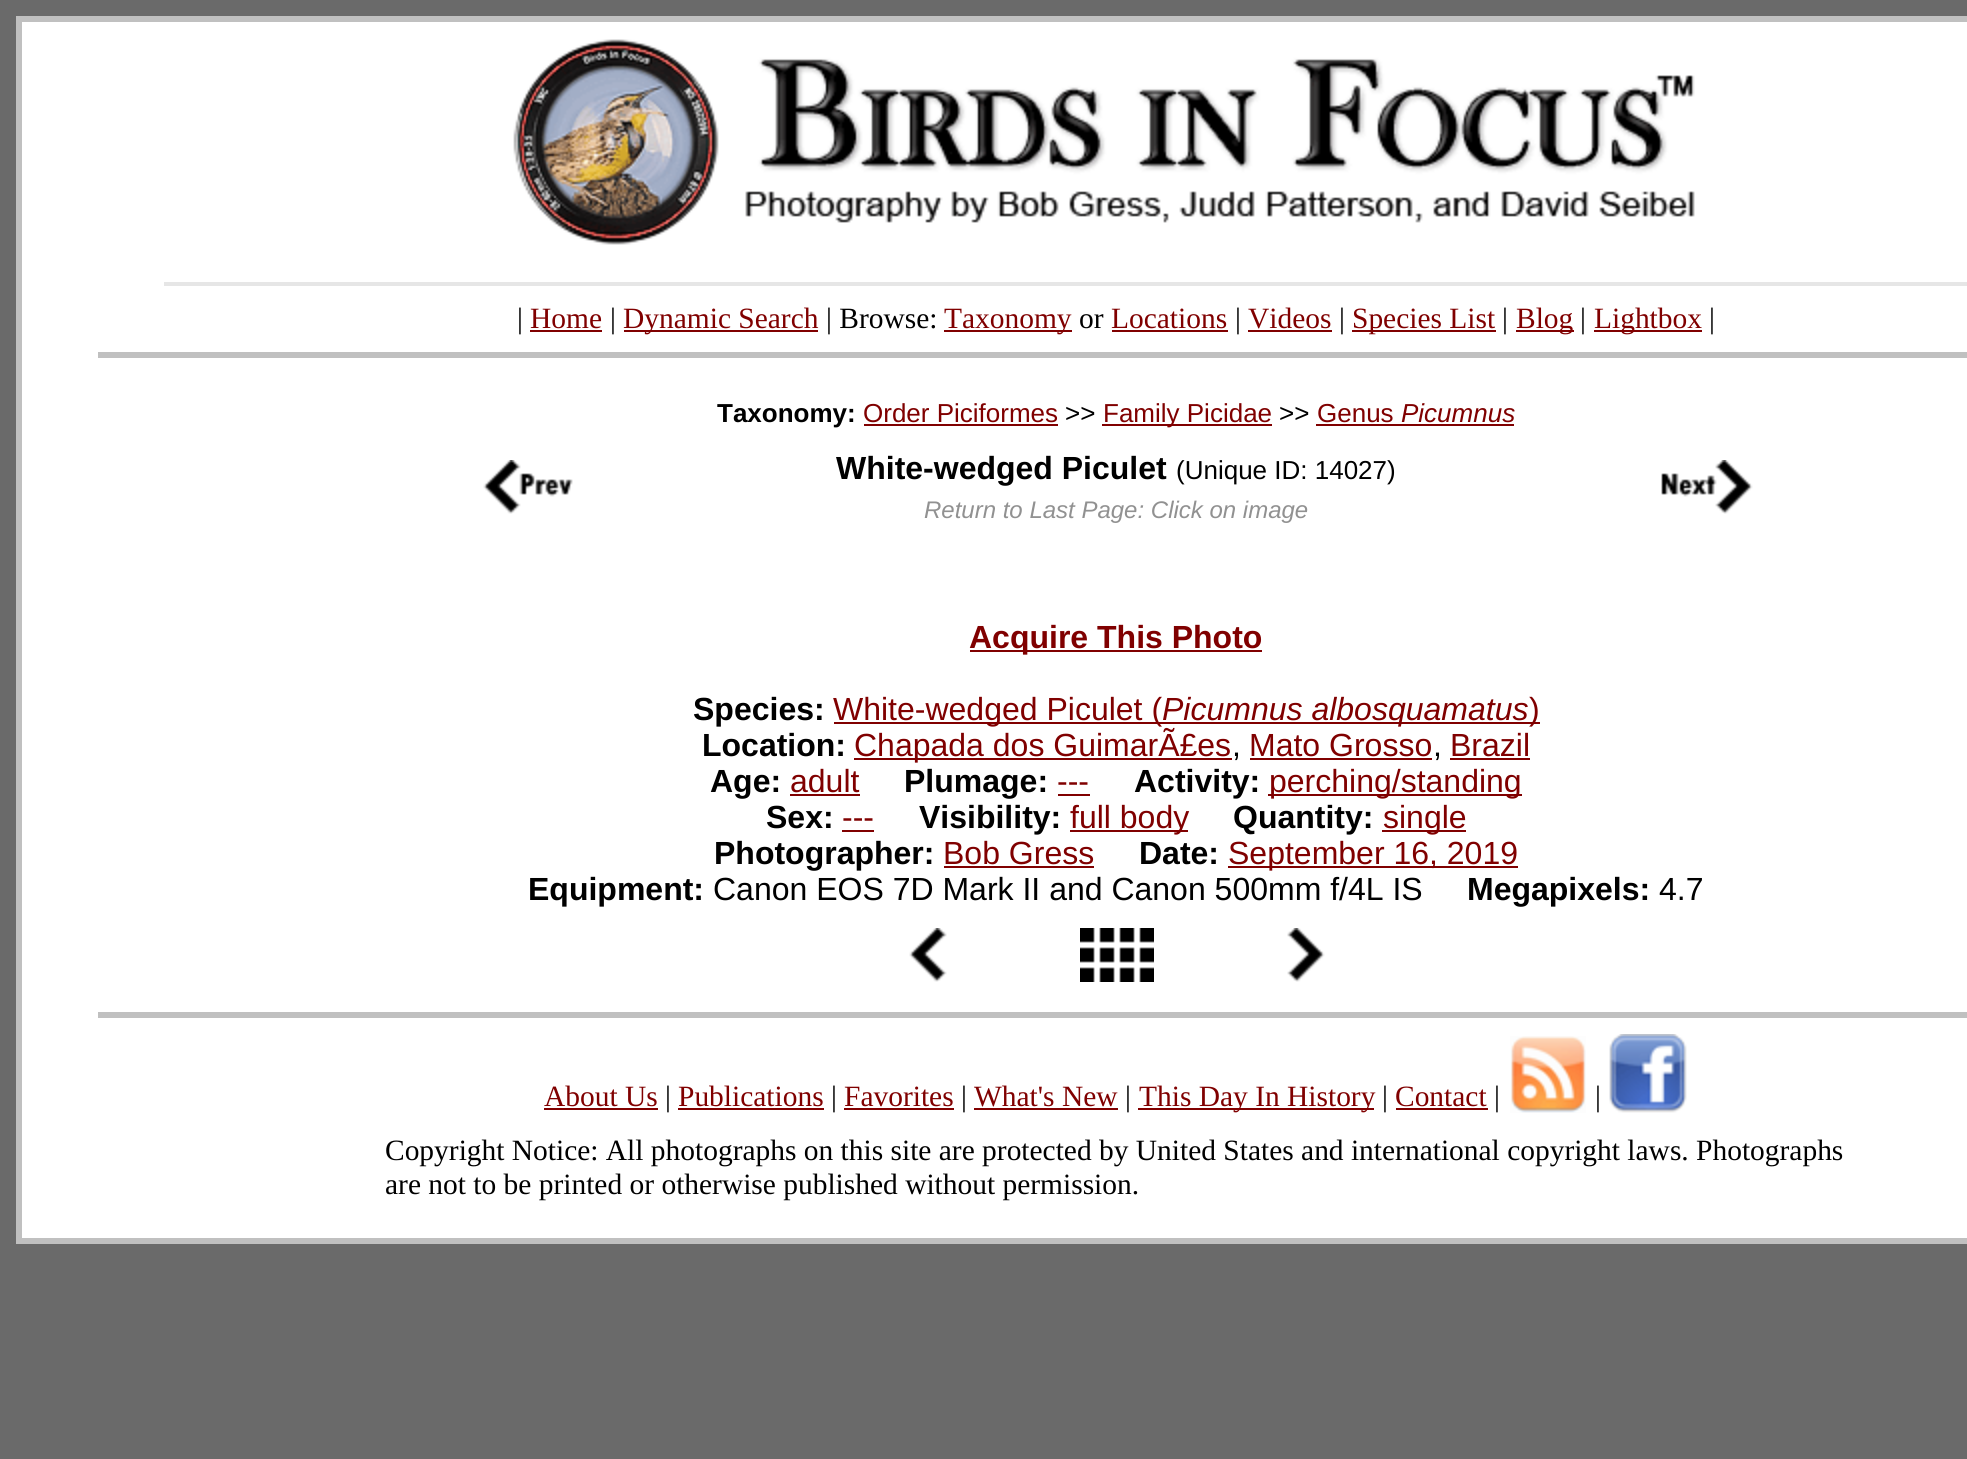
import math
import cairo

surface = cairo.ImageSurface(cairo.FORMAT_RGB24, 1967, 1459)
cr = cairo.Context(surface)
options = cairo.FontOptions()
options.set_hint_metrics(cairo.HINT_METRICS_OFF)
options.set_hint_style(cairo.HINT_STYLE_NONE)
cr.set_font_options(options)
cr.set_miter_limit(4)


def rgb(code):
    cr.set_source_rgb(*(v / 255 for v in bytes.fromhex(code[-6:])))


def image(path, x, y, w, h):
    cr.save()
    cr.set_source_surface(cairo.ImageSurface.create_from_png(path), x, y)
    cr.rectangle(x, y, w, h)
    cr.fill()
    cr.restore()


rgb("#6a6a6a")
cr.paint()
for x, y, w, h, color in [
    (22, 22, 1945, 1216, "#ffffff"),
    (16, 16, 1951, 6, "#c0c0c0"),
    (16, 1238, 1951, 6, "#c0c0c0"),
    (16, 16, 6, 1228, "#c0c0c0"),
]:
    rgb(color)
    cr.rectangle(x, y, w, h)
    cr.fill()
image("img/1.png", 513, 39, 1182, 206)
for x, y, w, h, color in [
    (164, 282, 1803, 4, "#e6e6e6"),
    (530, 330, 72, 2, "#800000"),
    (624, 330, 194, 2, "#800000"),
    (944, 330, 128, 2, "#800000"),
    (1112, 330, 116, 2, "#800000"),
    (1248, 330, 84, 2, "#800000"),
    (1352, 330, 144, 2, "#800000"),
    (1516, 330, 58, 2, "#800000"),
    (1594, 330, 108, 2, "#800000"),
    (98, 352, 1869, 6, "#c0c0c0"),
    (864, 424, 194, 2, "#800000"),
    (1102, 424, 170, 2, "#800000"),
    (1316, 424, 198, 2, "#800000"),
]:
    rgb(color)
    cr.rectangle(x, y, w, h)
    cr.fill()
image("img/2.png", 483, 460, 90, 54)
image("img/3.png", 1661, 460, 92, 54)
for x, y, w, h, color in [
    (970, 650, 292, 2, "#800000"),
    (834, 722, 706, 2, "#800000"),
    (854, 758, 378, 2, "#800000"),
    (1250, 758, 182, 2, "#800000"),
    (1450, 758, 80, 2, "#800000"),
    (790, 794, 70, 2, "#800000"),
    (1058, 794, 32, 2, "#800000"),
    (1268, 794, 254, 2, "#800000"),
    (842, 830, 32, 2, "#800000"),
    (1070, 830, 118, 2, "#800000"),
    (1382, 830, 84, 2, "#800000"),
    (944, 866, 150, 2, "#800000"),
    (1228, 866, 290, 2, "#800000"),
]:
    rgb(color)
    cr.rectangle(x, y, w, h)
    cr.fill()
image("img/4.png", 909, 928, 38, 54)
image("img/5.png", 1080, 928, 74, 54)
image("img/6.png", 1287, 928, 38, 54)
for x, y, w, h, color in [
    (98, 1012, 1869, 6, "#c0c0c0"),
    (544, 1108, 114, 2, "#800000"),
    (678, 1108, 146, 2, "#800000"),
    (844, 1108, 110, 2, "#800000"),
    (974, 1108, 144, 2, "#800000"),
    (1138, 1108, 236, 2, "#800000"),
    (1396, 1108, 92, 2, "#800000"),
]:
    rgb(color)
    cr.rectangle(x, y, w, h)
    cr.fill()
image("img/7.png", 1510, 1036, 76, 77)
image("img/8.png", 1609, 1034, 78, 79)
cr.select_font_face("Liberation Serif")
cr.set_font_size(29.45)
rgb("#000000")
cr.move_to(517, 328)
cr.show_text("|")
rgb("#800000")
cr.move_to(530, 328)
cr.show_text("Home")
rgb("#000000")
cr.move_to(610, 328)
cr.show_text("|")
rgb("#800000")
cr.move_to(623, 328)
cr.show_text("Dynamic Search")
rgb("#000000")
cr.move_to(826, 328)
cr.show_text("| Browse:")
rgb("#800000")
cr.move_to(944, 328)
cr.show_text("Taxonomy")
rgb("#000000")
cr.move_to(1079, 328)
cr.show_text("or")
rgb("#800000")
cr.move_to(1111, 328)
cr.show_text("Locations")
rgb("#000000")
cr.move_to(1235, 328)
cr.show_text("|")
rgb("#800000")
cr.move_to(1248, 328)
cr.show_text("Videos")
rgb("#000000")
cr.move_to(1339, 328)
cr.show_text("|")
rgb("#800000")
cr.move_to(1352, 328)
cr.show_text("Species List")
rgb("#000000")
cr.move_to(1502, 328)
cr.show_text("|")
rgb("#800000")
cr.move_to(1516, 328)
cr.show_text("Blog")
rgb("#000000")
cr.move_to(1580, 328)
cr.show_text("|")
rgb("#800000")
cr.move_to(1594, 328)
cr.show_text("Lightbox")
rgb("#000000")
cr.move_to(1709, 328)
cr.show_text("|")
cr.select_font_face("Liberation Sans", cairo.FONT_SLANT_NORMAL, cairo.FONT_WEIGHT_BOLD)
cr.set_font_size(26)
cr.move_to(717, 422)
cr.show_text("Taxonomy:")
cr.select_font_face("Liberation Sans")
rgb("#800000")
cr.move_to(863, 422)
cr.show_text("Order Piciformes")
rgb("#000000")
cr.move_to(1065, 422)
cr.show_text(">>")
rgb("#800000")
cr.move_to(1103, 422)
cr.show_text("Family Picidae")
rgb("#000000")
cr.move_to(1279, 422)
cr.show_text(">>")
rgb("#800000")
cr.move_to(1317, 422)
cr.show_text("Genus")
cr.select_font_face("Liberation Sans", cairo.FONT_SLANT_ITALIC)
cr.move_to(1401, 422)
cr.show_text("Picumnus")
cr.select_font_face("Liberation Sans", cairo.FONT_SLANT_NORMAL, cairo.FONT_WEIGHT_BOLD)
cr.set_font_size(32)
rgb("#000000")
cr.move_to(836, 479)
cr.show_text("White-wedged Piculet")
cr.select_font_face("Liberation Sans")
cr.set_font_size(26)
cr.move_to(1176, 479)
cr.show_text("(Unique ID: 14027)")
cr.select_font_face("Liberation Sans", cairo.FONT_SLANT_ITALIC)
cr.set_font_size(24)
rgb("#919191")
cr.move_to(924, 518)
cr.show_text("Return to Last Page: Click on image")
cr.select_font_face("Liberation Sans", cairo.FONT_SLANT_NORMAL, cairo.FONT_WEIGHT_BOLD)
cr.set_font_size(32)
rgb("#800000")
cr.move_to(969, 648)
cr.show_text("Acquire This Photo")
rgb("#000000")
cr.move_to(693, 720)
cr.show_text("Species:")
cr.select_font_face("Liberation Sans")
rgb("#800000")
cr.move_to(833, 720)
cr.show_text("White-wedged Piculet (")
cr.select_font_face("Liberation Sans", cairo.FONT_SLANT_ITALIC)
cr.move_to(1162, 720)
cr.show_text("Picumnus albosquamatus")
cr.select_font_face("Liberation Sans")
cr.move_to(1529, 720)
cr.show_text(")")
cr.select_font_face("Liberation Sans", cairo.FONT_SLANT_NORMAL, cairo.FONT_WEIGHT_BOLD)
rgb("#000000")
cr.move_to(702, 756)
cr.show_text("Location:")
cr.select_font_face("Liberation Sans")
rgb("#800000")
cr.move_to(854, 756)
cr.show_text("Chapada dos GuimarÃ£es")
rgb("#000000")
cr.move_to(1232, 756)
cr.show_text(",")
rgb("#800000")
cr.move_to(1249, 756)
cr.show_text("Mato Grosso")
rgb("#000000")
cr.move_to(1433, 756)
cr.show_text(",")
rgb("#800000")
cr.move_to(1450, 756)
cr.show_text("Brazil")
cr.select_font_face("Liberation Sans", cairo.FONT_SLANT_NORMAL, cairo.FONT_WEIGHT_BOLD)
rgb("#000000")
cr.move_to(710, 792)
cr.show_text("Age:")
cr.select_font_face("Liberation Sans")
rgb("#800000")
cr.move_to(790, 792)
cr.show_text("adult")
cr.select_font_face("Liberation Sans", cairo.FONT_SLANT_NORMAL, cairo.FONT_WEIGHT_BOLD)
rgb("#000000")
cr.move_to(904, 792)
cr.show_text("Plumage:")
cr.select_font_face("Liberation Sans")
rgb("#800000")
cr.move_to(1057, 792)
cr.show_text("---")
cr.select_font_face("Liberation Sans", cairo.FONT_SLANT_NORMAL, cairo.FONT_WEIGHT_BOLD)
rgb("#000000")
cr.move_to(1134, 792)
cr.show_text("Activity:")
cr.select_font_face("Liberation Sans")
rgb("#800000")
cr.move_to(1269, 792)
cr.show_text("perching/standing")
cr.select_font_face("Liberation Sans", cairo.FONT_SLANT_NORMAL, cairo.FONT_WEIGHT_BOLD)
rgb("#000000")
cr.move_to(766, 828)
cr.show_text("Sex:")
cr.select_font_face("Liberation Sans")
rgb("#800000")
cr.move_to(842, 828)
cr.show_text("---")
cr.select_font_face("Liberation Sans", cairo.FONT_SLANT_NORMAL, cairo.FONT_WEIGHT_BOLD)
rgb("#000000")
cr.move_to(919, 828)
cr.show_text("Visibility:")
cr.select_font_face("Liberation Sans")
rgb("#800000")
cr.move_to(1070, 828)
cr.show_text("full body")
cr.select_font_face("Liberation Sans", cairo.FONT_SLANT_NORMAL, cairo.FONT_WEIGHT_BOLD)
rgb("#000000")
cr.move_to(1233, 828)
cr.show_text("Quantity:")
cr.select_font_face("Liberation Sans")
rgb("#800000")
cr.move_to(1383, 828)
cr.show_text("single")
cr.select_font_face("Liberation Sans", cairo.FONT_SLANT_NORMAL, cairo.FONT_WEIGHT_BOLD)
rgb("#000000")
cr.move_to(714, 864)
cr.show_text("Photographer:")
cr.select_font_face("Liberation Sans")
rgb("#800000")
cr.move_to(943, 864)
cr.show_text("Bob Gress")
cr.select_font_face("Liberation Sans", cairo.FONT_SLANT_NORMAL, cairo.FONT_WEIGHT_BOLD)
rgb("#000000")
cr.move_to(1139, 864)
cr.show_text("Date:")
cr.select_font_face("Liberation Sans")
rgb("#800000")
cr.move_to(1228, 864)
cr.show_text("September 16, 2019")
cr.select_font_face("Liberation Sans", cairo.FONT_SLANT_NORMAL, cairo.FONT_WEIGHT_BOLD)
rgb("#000000")
cr.move_to(528, 900)
cr.show_text("Equipment:")
cr.select_font_face("Liberation Sans")
cr.move_to(713, 900)
cr.show_text("Canon EOS 7D Mark II and Canon 500mm f/4L IS")
cr.select_font_face("Liberation Sans", cairo.FONT_SLANT_NORMAL, cairo.FONT_WEIGHT_BOLD)
cr.move_to(1467, 900)
cr.show_text("Megapixels:")
cr.select_font_face("Liberation Sans")
cr.move_to(1659, 900)
cr.show_text("4.7")
cr.select_font_face("Liberation Serif")
cr.set_font_size(29.45)
rgb("#800000")
cr.move_to(544, 1106)
cr.show_text("About Us")
rgb("#000000")
cr.move_to(665, 1106)
cr.show_text("|")
rgb("#800000")
cr.move_to(678, 1106)
cr.show_text("Publications")
rgb("#000000")
cr.move_to(831, 1106)
cr.show_text("|")
rgb("#800000")
cr.move_to(844, 1106)
cr.show_text("Favorites")
rgb("#000000")
cr.move_to(961, 1106)
cr.show_text("|")
rgb("#800000")
cr.move_to(974, 1106)
cr.show_text("What's New")
rgb("#000000")
cr.move_to(1125, 1106)
cr.show_text("|")
rgb("#800000")
cr.move_to(1139, 1106)
cr.show_text("This Day In History")
rgb("#000000")
cr.move_to(1382, 1106)
cr.show_text("|")
rgb("#800000")
cr.move_to(1395, 1106)
cr.show_text("Contact")
rgb("#000000")
for x, y, s in [
    (1494, 1106, "|"),
    (1595, 1106, "|"),
    (385, 1160, "Copyright Notice: All photographs on this site are protected by United States and international copyright laws. Photographs"),
    (385, 1194, "are not to be printed or otherwise published without permission."),
]:
    cr.move_to(x, y)
    cr.show_text(s)
surface.write_to_png("page.png")
